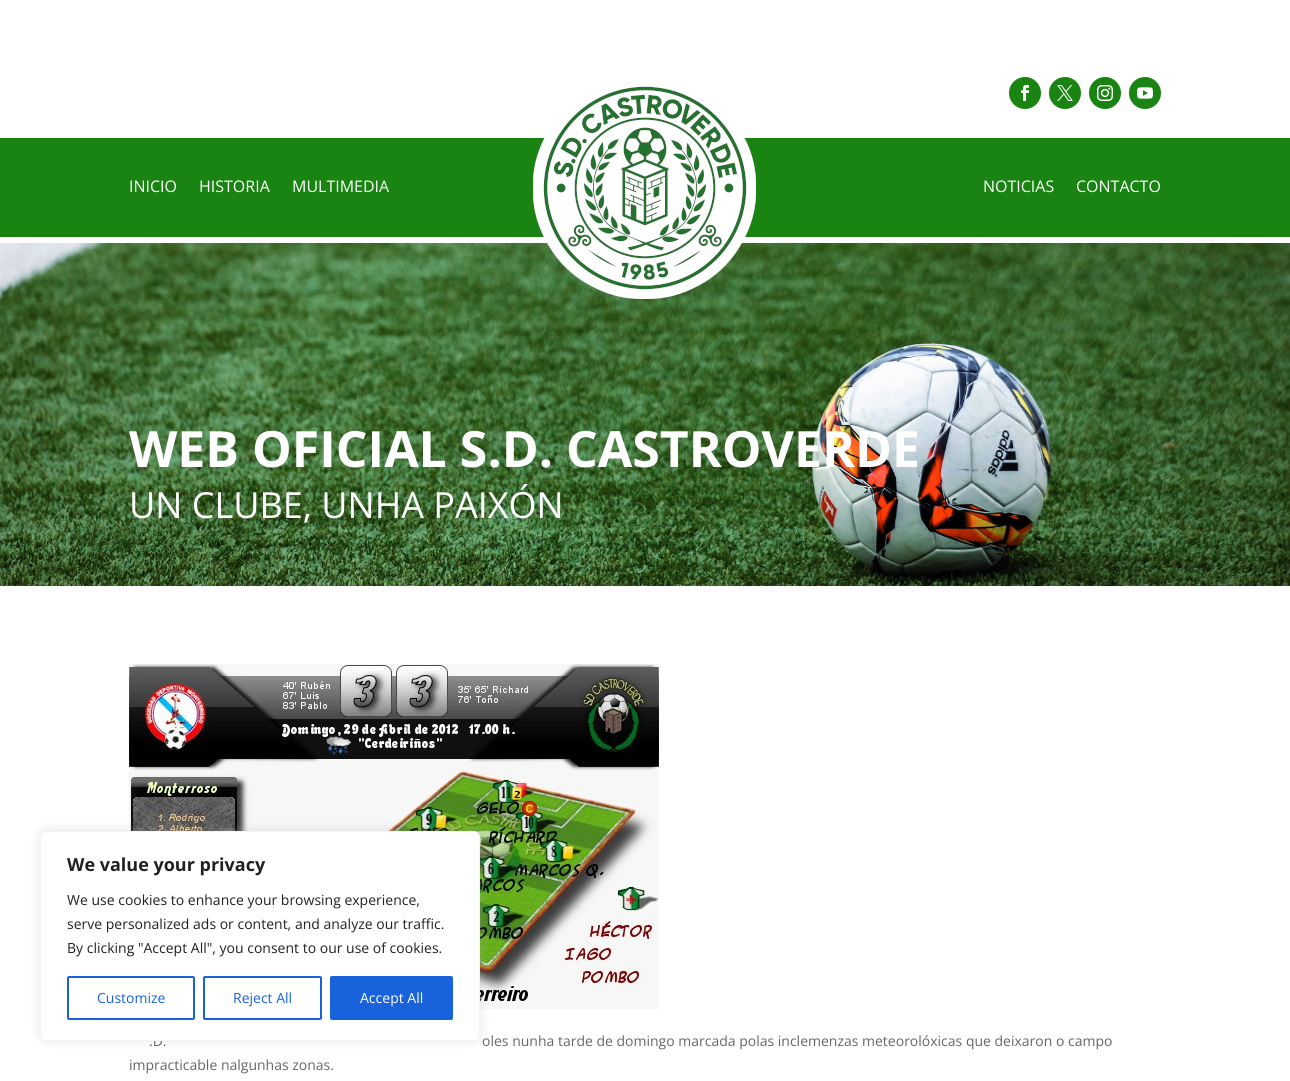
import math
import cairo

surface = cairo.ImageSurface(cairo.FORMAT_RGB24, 1290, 1081)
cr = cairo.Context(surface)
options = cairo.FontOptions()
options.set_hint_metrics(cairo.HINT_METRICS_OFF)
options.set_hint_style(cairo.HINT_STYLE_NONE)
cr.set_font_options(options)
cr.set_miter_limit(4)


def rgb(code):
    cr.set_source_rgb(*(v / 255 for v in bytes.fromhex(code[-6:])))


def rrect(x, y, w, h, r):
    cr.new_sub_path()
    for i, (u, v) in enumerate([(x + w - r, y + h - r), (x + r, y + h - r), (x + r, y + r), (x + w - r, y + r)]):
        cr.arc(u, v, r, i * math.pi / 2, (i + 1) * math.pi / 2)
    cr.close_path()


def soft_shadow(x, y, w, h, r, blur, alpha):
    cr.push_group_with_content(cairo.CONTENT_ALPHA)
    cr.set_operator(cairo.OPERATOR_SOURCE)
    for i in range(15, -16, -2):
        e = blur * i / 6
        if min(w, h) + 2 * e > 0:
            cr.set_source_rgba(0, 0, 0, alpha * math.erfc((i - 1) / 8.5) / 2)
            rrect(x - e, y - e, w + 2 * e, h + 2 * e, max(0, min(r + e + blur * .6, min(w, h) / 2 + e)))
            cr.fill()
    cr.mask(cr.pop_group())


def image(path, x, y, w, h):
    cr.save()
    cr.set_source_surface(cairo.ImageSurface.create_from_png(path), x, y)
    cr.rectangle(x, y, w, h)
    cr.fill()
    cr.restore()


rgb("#ffffff")
cr.paint()
image("img/6.png", 0, 243, 1290, 343)
image("img/5.png", 0, 86, 1290, 213)
rgb("#1a8413")
cr.arc(1025, 93, 16, 0, 2 * math.pi)
cr.fill()
image("img/1.png", 1021, 85, 8, 16)
cr.arc(1065, 93, 16, 0, 2 * math.pi)
cr.fill()
image("img/2.png", 1057, 85, 16, 16)
cr.arc(1105, 93, 16, 0, 2 * math.pi)
cr.fill()
image("img/3.png", 1097, 85, 16, 16)
cr.arc(1145, 93, 16, 0, 2 * math.pi)
cr.fill()
image("img/4.png", 1137, 87, 16, 12)
image("img/7.png", 129, 664, 530, 345)
rgb("#acabab")
soft_shadow(40, 830, 440, 210, 6, 5, 0.3)
cr.select_font_face("Open Sans")
cr.set_font_size(16)
rgb("#ffffff")
for x, y, s in [
    (129, 192, "INICIO"),
    (199, 192, "HISTORIA"),
    (292, 192, "MULTIMEDIA"),
    (983, 192, "NOTICIAS"),
    (1076, 192, "CONTACTO"),
]:
    cr.move_to(x, y)
    cr.show_text(s)
cr.select_font_face("Open Sans", cairo.FONT_SLANT_NORMAL, cairo.FONT_WEIGHT_BOLD)
cr.set_font_size(50)
cr.move_to(129, 467)
cr.show_text("WEB OFICIAL S.D. CASTROVERDE")
cr.select_font_face("Open Sans")
cr.set_font_size(36)
cr.move_to(129, 518)
cr.show_text("UN CLUBE, UNHA PAIXÓN")
cr.set_font_size(14)
rgb("#666666")
for x, y, s in [
    (149, 1046, ".D."),
    (482, 1046, "oles nunha tarde de domingo marcada polas inclemenzas meteorolóxicas que deixaron o campo"),
    (129, 1070, "impracticable nalgunhas zonas."),
]:
    cr.move_to(x, y)
    cr.show_text(s)
rgb("#ffffff")
rrect(40.5, 831.5, 439, 209, 5.5)
cr.fill_preserve()
rgb("#f4f4f4")
cr.set_line_width(1)
cr.stroke()
cr.select_font_face("Open Sans", cairo.FONT_SLANT_NORMAL, cairo.FONT_WEIGHT_BOLD)
cr.set_font_size(18)
rgb("#212121")
cr.move_to(67, 871)
cr.show_text("We value your privacy")
cr.select_font_face("Open Sans")
cr.set_font_size(14)
for x, y, s in [
    (67, 905, "We use cookies to enhance your browsing experience,"),
    (67, 929, "serve personalized ads or content, and analyze our traffic."),
    (67, 953, "By clicking \"Accept All\", you consent to our use of cookies."),
]:
    cr.move_to(x, y)
    cr.show_text(s)
rrect(68, 977, 126, 42, 1)
rgb("#1863dc")
cr.set_line_width(2)
cr.stroke()
cr.move_to(97, 1003)
cr.show_text("Customize")
rrect(204, 977, 117, 42, 1)
cr.stroke()
cr.move_to(233, 1003)
cr.show_text("Reject All")
rrect(331, 977, 121, 42, 1)
cr.fill_preserve()
cr.stroke()
rgb("#ffffff")
cr.move_to(360, 1003)
cr.show_text("Accept All")
surface.write_to_png("page.png")
